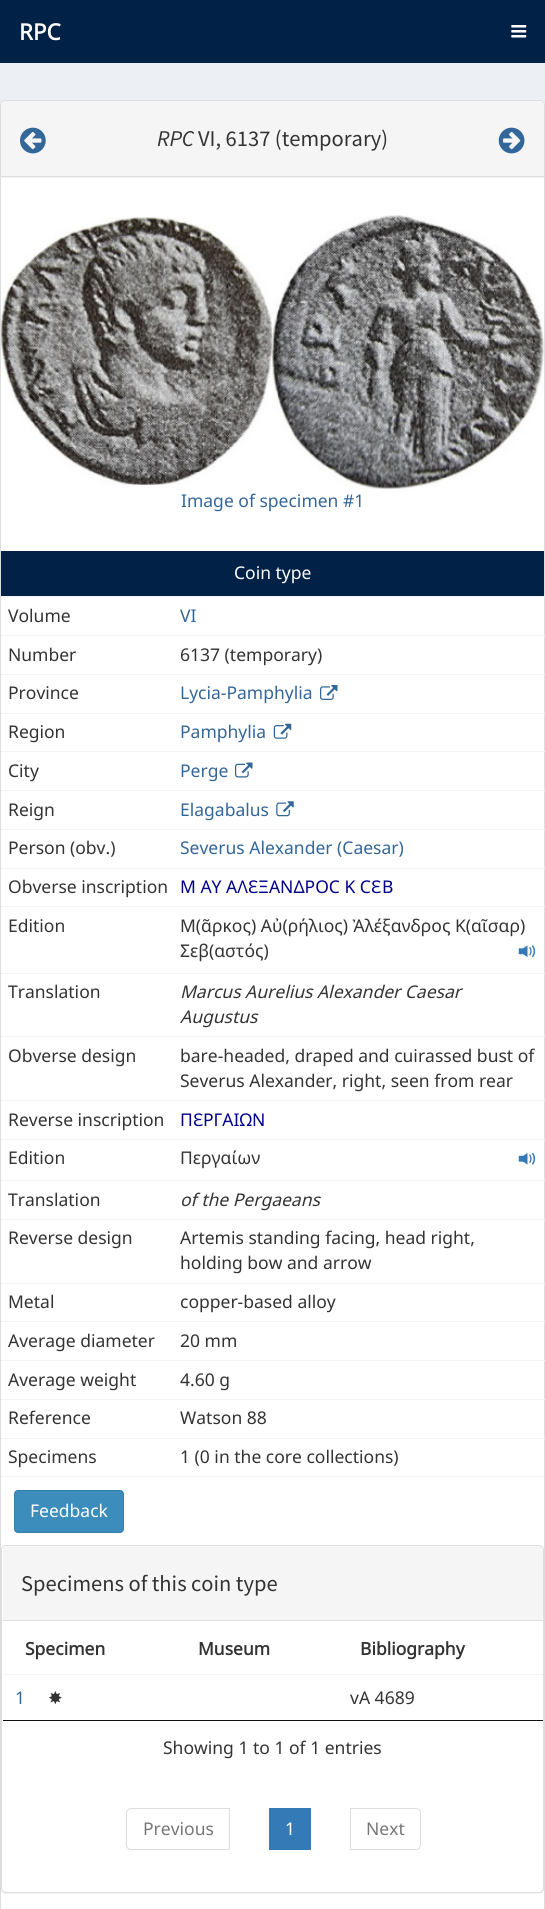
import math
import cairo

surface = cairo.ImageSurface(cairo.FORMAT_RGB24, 545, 1909)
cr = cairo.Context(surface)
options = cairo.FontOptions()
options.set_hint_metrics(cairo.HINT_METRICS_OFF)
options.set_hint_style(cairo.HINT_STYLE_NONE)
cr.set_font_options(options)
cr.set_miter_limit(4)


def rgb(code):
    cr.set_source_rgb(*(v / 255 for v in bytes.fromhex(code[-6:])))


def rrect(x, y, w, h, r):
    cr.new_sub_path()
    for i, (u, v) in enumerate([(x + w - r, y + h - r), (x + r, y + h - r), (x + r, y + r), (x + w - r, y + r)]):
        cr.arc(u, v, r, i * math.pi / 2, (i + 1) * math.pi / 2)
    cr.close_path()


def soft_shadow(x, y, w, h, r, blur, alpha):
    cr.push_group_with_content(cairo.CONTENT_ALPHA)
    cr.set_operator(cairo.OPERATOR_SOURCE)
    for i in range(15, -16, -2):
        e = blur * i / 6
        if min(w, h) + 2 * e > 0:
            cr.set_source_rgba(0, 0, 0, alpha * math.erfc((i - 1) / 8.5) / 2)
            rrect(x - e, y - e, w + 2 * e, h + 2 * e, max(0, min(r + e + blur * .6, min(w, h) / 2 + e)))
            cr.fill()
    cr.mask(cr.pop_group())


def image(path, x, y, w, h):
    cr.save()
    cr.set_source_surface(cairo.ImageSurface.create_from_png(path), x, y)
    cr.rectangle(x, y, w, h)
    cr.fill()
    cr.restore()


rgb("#ecf0f5")
cr.paint()
rgb("#012147")
cr.rectangle(0, 0, 545, 63)
cr.fill()
image("img/1.png", 511, 25, 16, 13)
rgb("#ffffff")
rrect(0.5, 100.5, 544, 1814, 4.5)
cr.fill_preserve()
rgb("#dddddd")
cr.set_line_width(1)
cr.stroke()
rgb("#f5f5f5")
cr.new_path()
cr.move_to(5, 101)
cr.line_to(540, 101)
cr.curve_to(542, 101, 544, 103, 544, 105)
cr.line_to(544, 178)
cr.line_to(1, 178)
cr.line_to(1, 105)
cr.curve_to(1, 103, 3, 101, 5, 101)
cr.close_path()
cr.fill()
rgb("#dddddd")
cr.rectangle(1, 176, 543, 1)
cr.fill()
image("img/2.png", 20, 127, 26, 27)
image("img/3.png", 498, 127, 27, 27)
image("img/4.png", 1, 217, 272, 268)
image("img/5.png", 272, 215, 272, 274)
for x, y, w, h, color in [
    (1, 551, 543, 45, "#012147"),
    (1, 596, 544, 1, "#f4f4f4"),
    (1, 635, 544, 1, "#f4f4f4"),
    (1, 674, 544, 1, "#f4f4f4"),
]:
    rgb(color)
    cr.rectangle(x, y, w, h)
    cr.fill()
image("img/6.png", 320, 685, 18, 15)
cr.rectangle(1, 713, 544, 1)
cr.fill()
image("img/7.png", 273, 723, 19, 16)
cr.rectangle(1, 751, 544, 1)
cr.fill()
image("img/8.png", 235, 762, 18, 16)
cr.rectangle(1, 790, 544, 1)
cr.fill()
image("img/9.png", 276, 801, 18, 16)
for x, y, w, h, color in [
    (1, 829, 544, 1, "#f4f4f4"),
    (1, 868, 544, 1, "#f4f4f4"),
    (1, 906, 544, 1, "#f4f4f4"),
]:
    rgb(color)
    cr.rectangle(x, y, w, h)
    cr.fill()
image("img/10.png", 518, 945, 18, 13)
for x, y, w, h, color in [
    (1, 973, 544, 1, "#f4f4f4"),
    (1, 1036, 544, 1, "#f4f4f4"),
    (1, 1100, 544, 1, "#f4f4f4"),
    (1, 1139, 544, 1, "#f4f4f4"),
]:
    rgb(color)
    cr.rectangle(x, y, w, h)
    cr.fill()
image("img/11.png", 518, 1152, 18, 13)
for x, y, w, h, color in [
    (1, 1180, 544, 1, "#f4f4f4"),
    (1, 1219, 544, 1, "#f4f4f4"),
    (1, 1283, 544, 1, "#f4f4f4"),
    (1, 1321, 544, 1, "#f4f4f4"),
    (1, 1360, 544, 1, "#f4f4f4"),
    (1, 1399, 544, 1, "#f4f4f4"),
    (1, 1438, 544, 1, "#f4f4f4"),
    (1, 1476, 543, 1, "#f4f4f4"),
]:
    rgb(color)
    cr.rectangle(x, y, w, h)
    cr.fill()
rgb("#3c8dbc")
rrect(14.5, 1490.5, 109, 42, 3.5)
cr.fill_preserve()
rgb("#367fa9")
cr.stroke()
rgb("#000000")
soft_shadow(1, 1546, 543, 348, 5, 0.5, 0.05)
rgb("#ffffff")
rrect(1.5, 1545.5, 542, 347, 4.5)
cr.fill_preserve()
rgb("#dddddd")
cr.stroke()
rgb("#f5f5f5")
cr.new_path()
cr.move_to(7, 1546)
cr.line_to(539, 1546)
cr.curve_to(541, 1546, 543, 1548, 543, 1550)
cr.line_to(543, 1621)
cr.line_to(3, 1621)
cr.line_to(3, 1550)
cr.curve_to(3, 1548, 5, 1546, 7, 1546)
cr.close_path()
cr.fill()
for x, y, w, h, color in [
    (3, 1620, 540, 1, "#dddddd"),
    (3, 1720, 540, 1, "#111111"),
    (3, 1674, 540, 1, "#f4f4f4"),
]:
    rgb(color)
    cr.rectangle(x, y, w, h)
    cr.fill()
cr.new_path()
cr.move_to(131, 1808.5)
cr.line_to(229.5, 1808.5)
cr.line_to(229.5, 1849.5)
cr.line_to(131, 1849.5)
cr.curve_to(128.5, 1849.5, 126.5, 1847.5, 126.5, 1845)
cr.line_to(126.5, 1813)
cr.curve_to(126.5, 1810.5, 128.5, 1808.5, 131, 1808.5)
cr.close_path()
rgb("#dddddd")
cr.stroke()
rgb("#337ab7")
cr.rectangle(269, 1808, 42, 42)
cr.fill()
cr.new_path()
cr.move_to(350.5, 1808.5)
cr.line_to(416, 1808.5)
cr.curve_to(418.5, 1808.5, 420.5, 1810.5, 420.5, 1813)
cr.line_to(420.5, 1845)
cr.curve_to(420.5, 1847.5, 418.5, 1849.5, 416, 1849.5)
cr.line_to(350.5, 1849.5)
cr.close_path()
rgb("#dddddd")
cr.stroke()
cr.select_font_face("Noto Sans", cairo.FONT_SLANT_NORMAL, cairo.FONT_WEIGHT_BOLD)
cr.set_font_size(22.5)
rgb("#ffffff")
cr.move_to(19, 40)
cr.show_text("RPC")
cr.select_font_face("Source Sans Pro", cairo.FONT_SLANT_ITALIC)
rgb("#333333")
cr.move_to(157, 146)
cr.show_text("RPC")
cr.select_font_face("Source Sans Pro")
cr.move_to(198, 146)
cr.show_text("VI, 6137 (temporary)")
cr.select_font_face("Noto Sans")
cr.set_font_size(17.5)
rgb("#336699")
cr.move_to(181, 507)
cr.show_text("Image of specimen #1")
rgb("#ffffff")
cr.move_to(234, 579)
cr.show_text("Coin type")
rgb("#333333")
cr.move_to(8, 622)
cr.show_text("Volume")
rgb("#336699")
cr.move_to(180, 622)
cr.show_text("VI")
rgb("#333333")
for x, y, s in [
    (8, 661, "Number"),
    (180, 661, "6137 (temporary)"),
    (8, 699, "Province"),
]:
    cr.move_to(x, y)
    cr.show_text(s)
rgb("#336699")
cr.move_to(180, 699)
cr.show_text("Lycia-Pamphylia")
rgb("#333333")
cr.move_to(8, 738)
cr.show_text("Region")
rgb("#336699")
cr.move_to(180, 738)
cr.show_text("Pamphylia")
rgb("#333333")
cr.move_to(8, 777)
cr.show_text("City")
rgb("#336699")
cr.move_to(180, 777)
cr.show_text("Perge")
rgb("#333333")
cr.move_to(8, 816)
cr.show_text("Reign")
rgb("#336699")
cr.move_to(180, 816)
cr.show_text("Elagabalus")
rgb("#333333")
cr.move_to(8, 854)
cr.show_text("Person (obv.)")
rgb("#336699")
cr.move_to(180, 854)
cr.show_text("Severus Alexander (Caesar)")
rgb("#333333")
cr.move_to(8, 893)
cr.show_text("Obverse inscription")
rgb("#00008b")
cr.move_to(180, 893)
cr.show_text("Μ ΑΥ ΑΛ")
cr.select_font_face("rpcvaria")
cr.move_to(248, 893)
cr.show_text("Ε")
cr.select_font_face("Noto Sans")
cr.move_to(258, 893)
cr.show_text("ΞΑΝΔΡΟϹ Κ Ϲ")
cr.select_font_face("rpcvaria")
cr.move_to(371, 893)
cr.show_text("Ε")
cr.select_font_face("Noto Sans")
cr.move_to(382, 893)
cr.show_text("Β")
rgb("#333333")
for x, y, s in [
    (8, 932, "Edition"),
    (180, 932, "Μ(ᾶρκος) Αὐ(ρήλιος) Ἀλέξανδρος Κ(αῖσαρ)"),
    (180, 957, "Σεβ(αστός)"),
    (8, 998, "Translation"),
]:
    cr.move_to(x, y)
    cr.show_text(s)
cr.select_font_face("Noto Sans", cairo.FONT_SLANT_ITALIC)
cr.move_to(180, 998)
cr.show_text("Marcus Aurelius Alexander Caesar")
cr.move_to(180, 1023)
cr.show_text("Augustus")
cr.select_font_face("Noto Sans")
for x, y, s in [
    (8, 1062, "Obverse design"),
    (180, 1062, "bare-headed, draped and cuirassed bust of"),
    (180, 1087, "Severus Alexander, right, seen from rear"),
    (8, 1126, "Reverse inscription"),
]:
    cr.move_to(x, y)
    cr.show_text(s)
rgb("#00008b")
cr.move_to(180, 1126)
cr.show_text("Π")
cr.select_font_face("rpcvaria")
cr.move_to(193, 1126)
cr.show_text("Ε")
cr.select_font_face("Noto Sans")
cr.move_to(203, 1126)
cr.show_text("ΡΓΑΙΩΝ")
rgb("#333333")
for x, y, s in [
    (8, 1164, "Edition"),
    (180, 1164, "Περγαίων"),
    (8, 1206, "Translation"),
]:
    cr.move_to(x, y)
    cr.show_text(s)
cr.select_font_face("Noto Sans", cairo.FONT_SLANT_ITALIC)
cr.move_to(180, 1206)
cr.show_text("of the Pergaeans")
cr.select_font_face("Noto Sans")
for x, y, s in [
    (8, 1244, "Reverse design"),
    (180, 1244, "Artemis standing facing, head right,"),
    (180, 1269, "holding bow and arrow"),
    (8, 1308, "Metal"),
    (180, 1308, "copper-based alloy"),
    (8, 1347, "Average diameter"),
    (180, 1347, "20 mm"),
    (8, 1386, "Average weight"),
    (180, 1386, "4.60 g"),
    (8, 1424, "Reference"),
    (180, 1424, "Watson 88"),
    (8, 1463, "Specimens"),
    (180, 1463, "1 (0 in the core collections)"),
]:
    cr.move_to(x, y)
    cr.show_text(s)
rgb("#ffffff")
cr.move_to(30, 1517)
cr.show_text("Feedback")
cr.select_font_face("Source Sans Pro")
cr.set_font_size(22.5)
rgb("#333333")
cr.move_to(21, 1591)
cr.show_text("Specimens of this coin type")
cr.select_font_face("Noto Sans", cairo.FONT_SLANT_NORMAL, cairo.FONT_WEIGHT_BOLD)
cr.set_font_size(17.5)
for x, y, s in [
    (25, 1655, "Specimen"),
    (198, 1655, "Museum"),
    (360, 1655, "Bibliography"),
]:
    cr.move_to(x, y)
    cr.show_text(s)
cr.select_font_face("Noto Sans")
rgb("#336699")
cr.move_to(15, 1704)
cr.show_text("1")
cr.select_font_face("DejaVu Sans")
rgb("#333333")
cr.move_to(48, 1704)
cr.show_text("✸")
cr.select_font_face("Noto Sans")
cr.move_to(350, 1704)
cr.show_text("vA 4689")
cr.move_to(163, 1754)
cr.show_text("Showing 1 to 1 of 1 entries")
rgb("#777777")
cr.move_to(143, 1835)
cr.show_text("Previous")
rgb("#ffffff")
cr.move_to(285, 1835)
cr.show_text("1")
rgb("#777777")
cr.move_to(366, 1835)
cr.show_text("Next")
surface.write_to_png("page.png")
